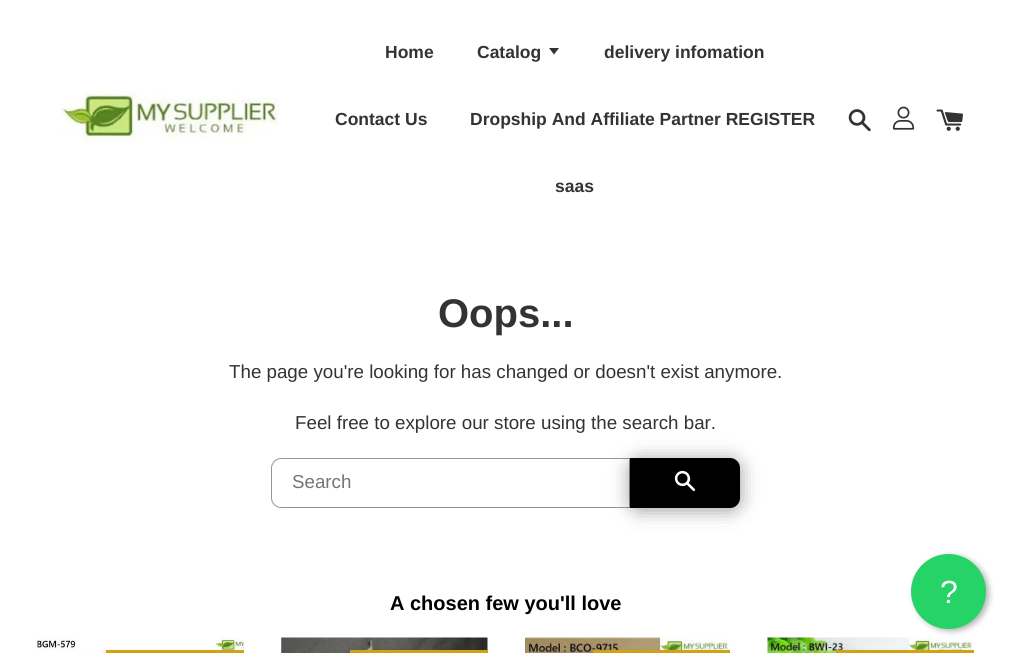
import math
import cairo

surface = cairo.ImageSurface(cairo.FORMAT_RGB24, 1011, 653)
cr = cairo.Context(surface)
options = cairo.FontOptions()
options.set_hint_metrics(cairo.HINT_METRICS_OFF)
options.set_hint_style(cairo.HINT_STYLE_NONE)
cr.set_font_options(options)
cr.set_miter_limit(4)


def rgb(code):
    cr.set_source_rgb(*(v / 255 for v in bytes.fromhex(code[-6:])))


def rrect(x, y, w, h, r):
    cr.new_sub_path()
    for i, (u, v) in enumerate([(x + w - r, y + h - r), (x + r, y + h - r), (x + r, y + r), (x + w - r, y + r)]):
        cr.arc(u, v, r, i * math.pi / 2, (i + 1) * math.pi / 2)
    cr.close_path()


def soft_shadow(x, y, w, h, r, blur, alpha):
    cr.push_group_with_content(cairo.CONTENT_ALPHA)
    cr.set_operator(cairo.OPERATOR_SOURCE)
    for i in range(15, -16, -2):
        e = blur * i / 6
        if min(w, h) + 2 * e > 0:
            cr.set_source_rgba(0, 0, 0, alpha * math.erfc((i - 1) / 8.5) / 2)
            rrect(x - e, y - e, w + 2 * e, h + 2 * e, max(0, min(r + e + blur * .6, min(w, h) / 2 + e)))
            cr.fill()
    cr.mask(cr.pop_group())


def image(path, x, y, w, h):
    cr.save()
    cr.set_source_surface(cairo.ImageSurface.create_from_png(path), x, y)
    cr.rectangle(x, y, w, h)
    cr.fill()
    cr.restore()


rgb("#ffffff")
cr.paint()
image("img/1.png", 61, 92, 218, 52)
rgb("#333333")
cr.new_path()
cr.move_to(549, 48)
cr.line_to(554, 54.5)
cr.line_to(559, 48)
cr.close_path()
cr.fill()
image("img/2.png", 848, 109, 23, 23)
image("img/3.png", 892, 106, 23, 24)
image("img/4.png", 936, 109, 27, 22)
cr.new_path()
cr.move_to(281, 458.5)
cr.line_to(629.5, 458.5)
cr.line_to(629.5, 507.5)
cr.line_to(281, 507.5)
cr.curve_to(276, 507.5, 271.5, 503, 271.5, 498)
cr.line_to(271.5, 468)
cr.curve_to(271.5, 463, 276, 458.5, 281, 458.5)
cr.close_path()
rgb("#959595")
cr.set_line_width(1)
cr.stroke()
rgb("#000000")
soft_shadow(630, 460, 110, 50, 10, 9.5, 0.4)
rgb("#000000")
cr.new_path()
cr.move_to(630, 458)
cr.line_to(730, 458)
cr.curve_to(735.5, 458, 740, 462.5, 740, 468)
cr.line_to(740, 498)
cr.curve_to(740, 503.5, 735.5, 508, 730, 508)
cr.line_to(630, 508)
cr.close_path()
cr.fill()
image("img/5.png", 674, 470, 22, 21)
image("img/6.png", 37, 637, 207, 16)
rgb("#000000")
soft_shadow(104, 653, 137, 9, 0, 3, 0.15)
rgb("#d2a216")
cr.rectangle(106, 650, 138, 3)
cr.fill()
image("img/7.png", 281, 637, 207, 16)
rgb("#000000")
soft_shadow(348, 653, 137, 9, 0, 3, 0.15)
rgb("#d2a216")
cr.rectangle(350, 650, 138, 3)
cr.fill()
image("img/8.png", 525, 637, 204, 16)
rgb("#000000")
soft_shadow(590, 653, 138, 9, 0, 3, 0.15)
rgb("#d2a216")
cr.rectangle(593, 650, 137, 3)
cr.fill()
image("img/9.png", 767, 637, 207, 16)
rgb("#000000")
soft_shadow(834, 653, 137, 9, 0, 3, 0.15)
rgb("#d2a216")
cr.rectangle(836, 650, 138, 3)
cr.fill()
rgb("#000000")
soft_shadow(914, 556, 75, 75, 37.5, 3, 0.3)
rgb("#25d366")
cr.arc(948.5, 591.5, 37.5, 0, 2 * math.pi)
cr.fill()
cr.select_font_face("Liberation Sans", cairo.FONT_SLANT_NORMAL, cairo.FONT_WEIGHT_BOLD)
cr.set_font_size(17.5)
rgb("#333333")
for x, y, s in [
    (385, 58, "Home"),
    (477, 58, "Catalog"),
    (604, 58, "delivery infomation"),
    (335, 125, "Contact Us"),
    (470, 125, "Dropship And Affiliate Partner REGISTER"),
    (555, 192, "saas"),
]:
    cr.move_to(x, y)
    cr.show_text(s)
cr.set_font_size(40)
cr.move_to(438, 327)
cr.show_text("Oops...")
cr.select_font_face("Liberation Sans")
cr.set_font_size(18.75)
cr.move_to(229, 378)
cr.show_text("The page you're looking for has changed or doesn't exist anymore.")
cr.move_to(295, 429)
cr.show_text("Feel free to explore our store using the search bar.")
rgb("#757575")
cr.move_to(292, 488)
cr.show_text("Search")
cr.select_font_face("Liberation Sans", cairo.FONT_SLANT_NORMAL, cairo.FONT_WEIGHT_BOLD)
cr.set_font_size(20)
rgb("#000000")
cr.move_to(390, 610)
cr.show_text("A chosen few you'll love")
cr.select_font_face("Liberation Sans")
cr.set_font_size(32)
rgb("#ffffff")
cr.move_to(940, 603)
cr.show_text("?")
surface.write_to_png("page.png")
